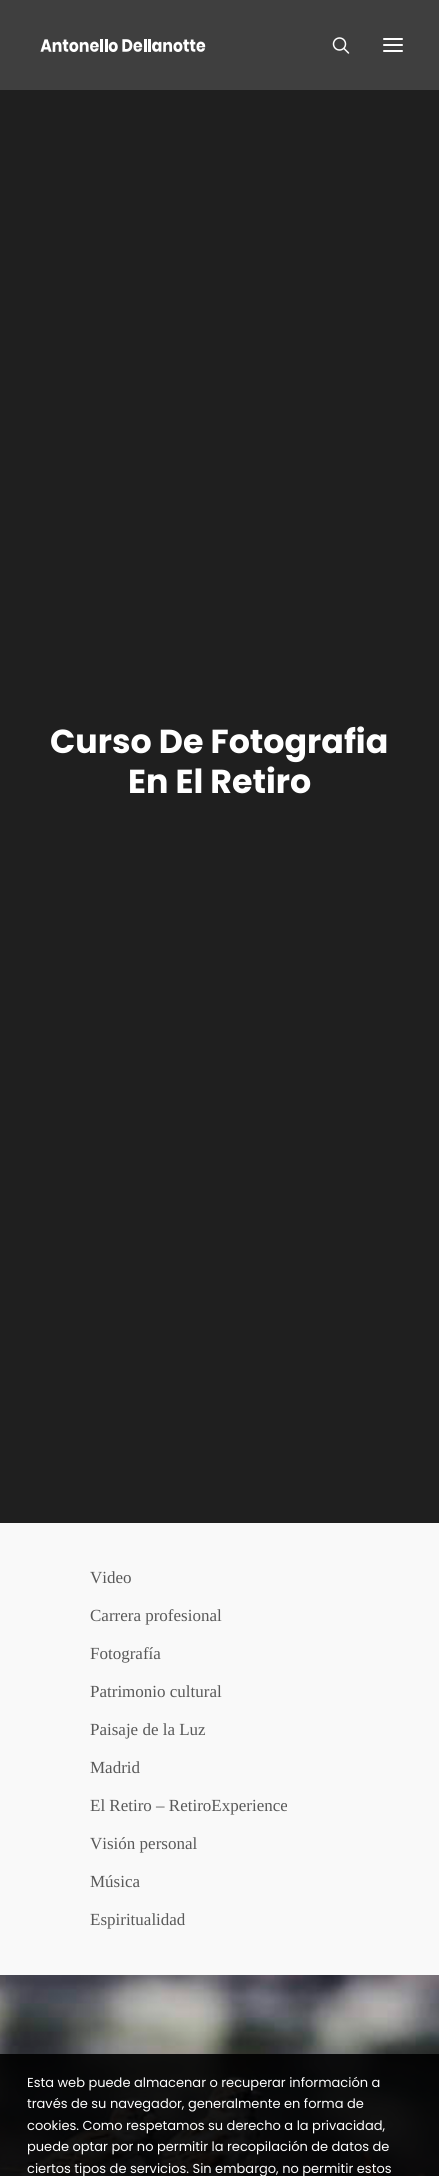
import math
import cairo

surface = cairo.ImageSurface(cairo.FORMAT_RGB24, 439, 2176)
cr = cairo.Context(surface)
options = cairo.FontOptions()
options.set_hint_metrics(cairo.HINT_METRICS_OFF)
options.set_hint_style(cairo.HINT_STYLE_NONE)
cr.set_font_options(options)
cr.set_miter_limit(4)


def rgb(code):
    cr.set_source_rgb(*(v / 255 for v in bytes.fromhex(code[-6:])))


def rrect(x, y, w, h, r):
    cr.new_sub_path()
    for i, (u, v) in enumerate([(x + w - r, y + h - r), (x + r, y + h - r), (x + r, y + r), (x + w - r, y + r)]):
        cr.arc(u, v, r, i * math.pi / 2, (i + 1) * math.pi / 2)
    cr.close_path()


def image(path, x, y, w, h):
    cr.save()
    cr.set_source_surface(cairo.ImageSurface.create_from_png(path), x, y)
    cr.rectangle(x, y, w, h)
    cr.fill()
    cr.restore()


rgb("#1f1f1f")
cr.paint()
rgb("#3f3f3f")
cr.rectangle(0, 0, 439, 90)
cr.fill()
image("img/1.png", 40, 39, 166, 13)
image("img/2.png", 332, 37, 18, 17)
rgb("#ffffff")
rrect(383, 44, 20, 2, 1)
cr.fill()
rrect(383, 38, 20, 2, 1)
cr.fill()
rrect(383, 50, 20, 2, 1)
cr.fill()
rgb("#f9f9f9")
cr.rectangle(0, 1523, 439, 452)
cr.fill()
image("img/3.png", 0, 1975, 439, 201)
cr.set_source_rgba(0, 0, 0, 0.9)
cr.rectangle(0, 2054, 439, 122)
cr.fill()
cr.select_font_face("Poppins", cairo.FONT_SLANT_NORMAL, cairo.FONT_WEIGHT_BOLD)
cr.set_font_size(33.25)
rgb("#ffffff")
cr.move_to(50, 753)
cr.show_text("Curso De Fotografia")
cr.move_to(128, 793)
cr.show_text("En El Retiro")
cr.select_font_face("Liberation Serif")
cr.set_font_size(17)
rgb("#595959")
for x, y, s in [
    (90, 1583, "Video"),
    (90, 1621, "Carrera profesional"),
    (90, 1659, "Fotografía"),
    (90, 1697, "Patrimonio cultural"),
    (90, 1735, "Paisaje de la Luz"),
    (90, 1773, "Madrid"),
    (90, 1811, "El Retiro – RetiroExperience"),
    (90, 1849, "Visión personal"),
    (90, 1887, "Música"),
    (90, 1925, "Espiritualidad"),
]:
    cr.move_to(x, y)
    cr.show_text(s)
cr.select_font_face("Poppins")
cr.set_font_size(13)
rgb("#ffffff")
for x, y, s in [
    (27, 2087, "Esta web puede almacenar o recuperar información a"),
    (27, 2108, "través de su navegador, generalmente en forma de"),
    (27, 2130, "cookies. Como respetamos su derecho a la privacidad,"),
    (27, 2151, "puede optar por no permitir la recopilación de datos de"),
    (27, 2173, "ciertos tipos de servicios. Sin embargo, no permitir estos"),
]:
    cr.move_to(x, y)
    cr.show_text(s)
surface.write_to_png("page.png")
